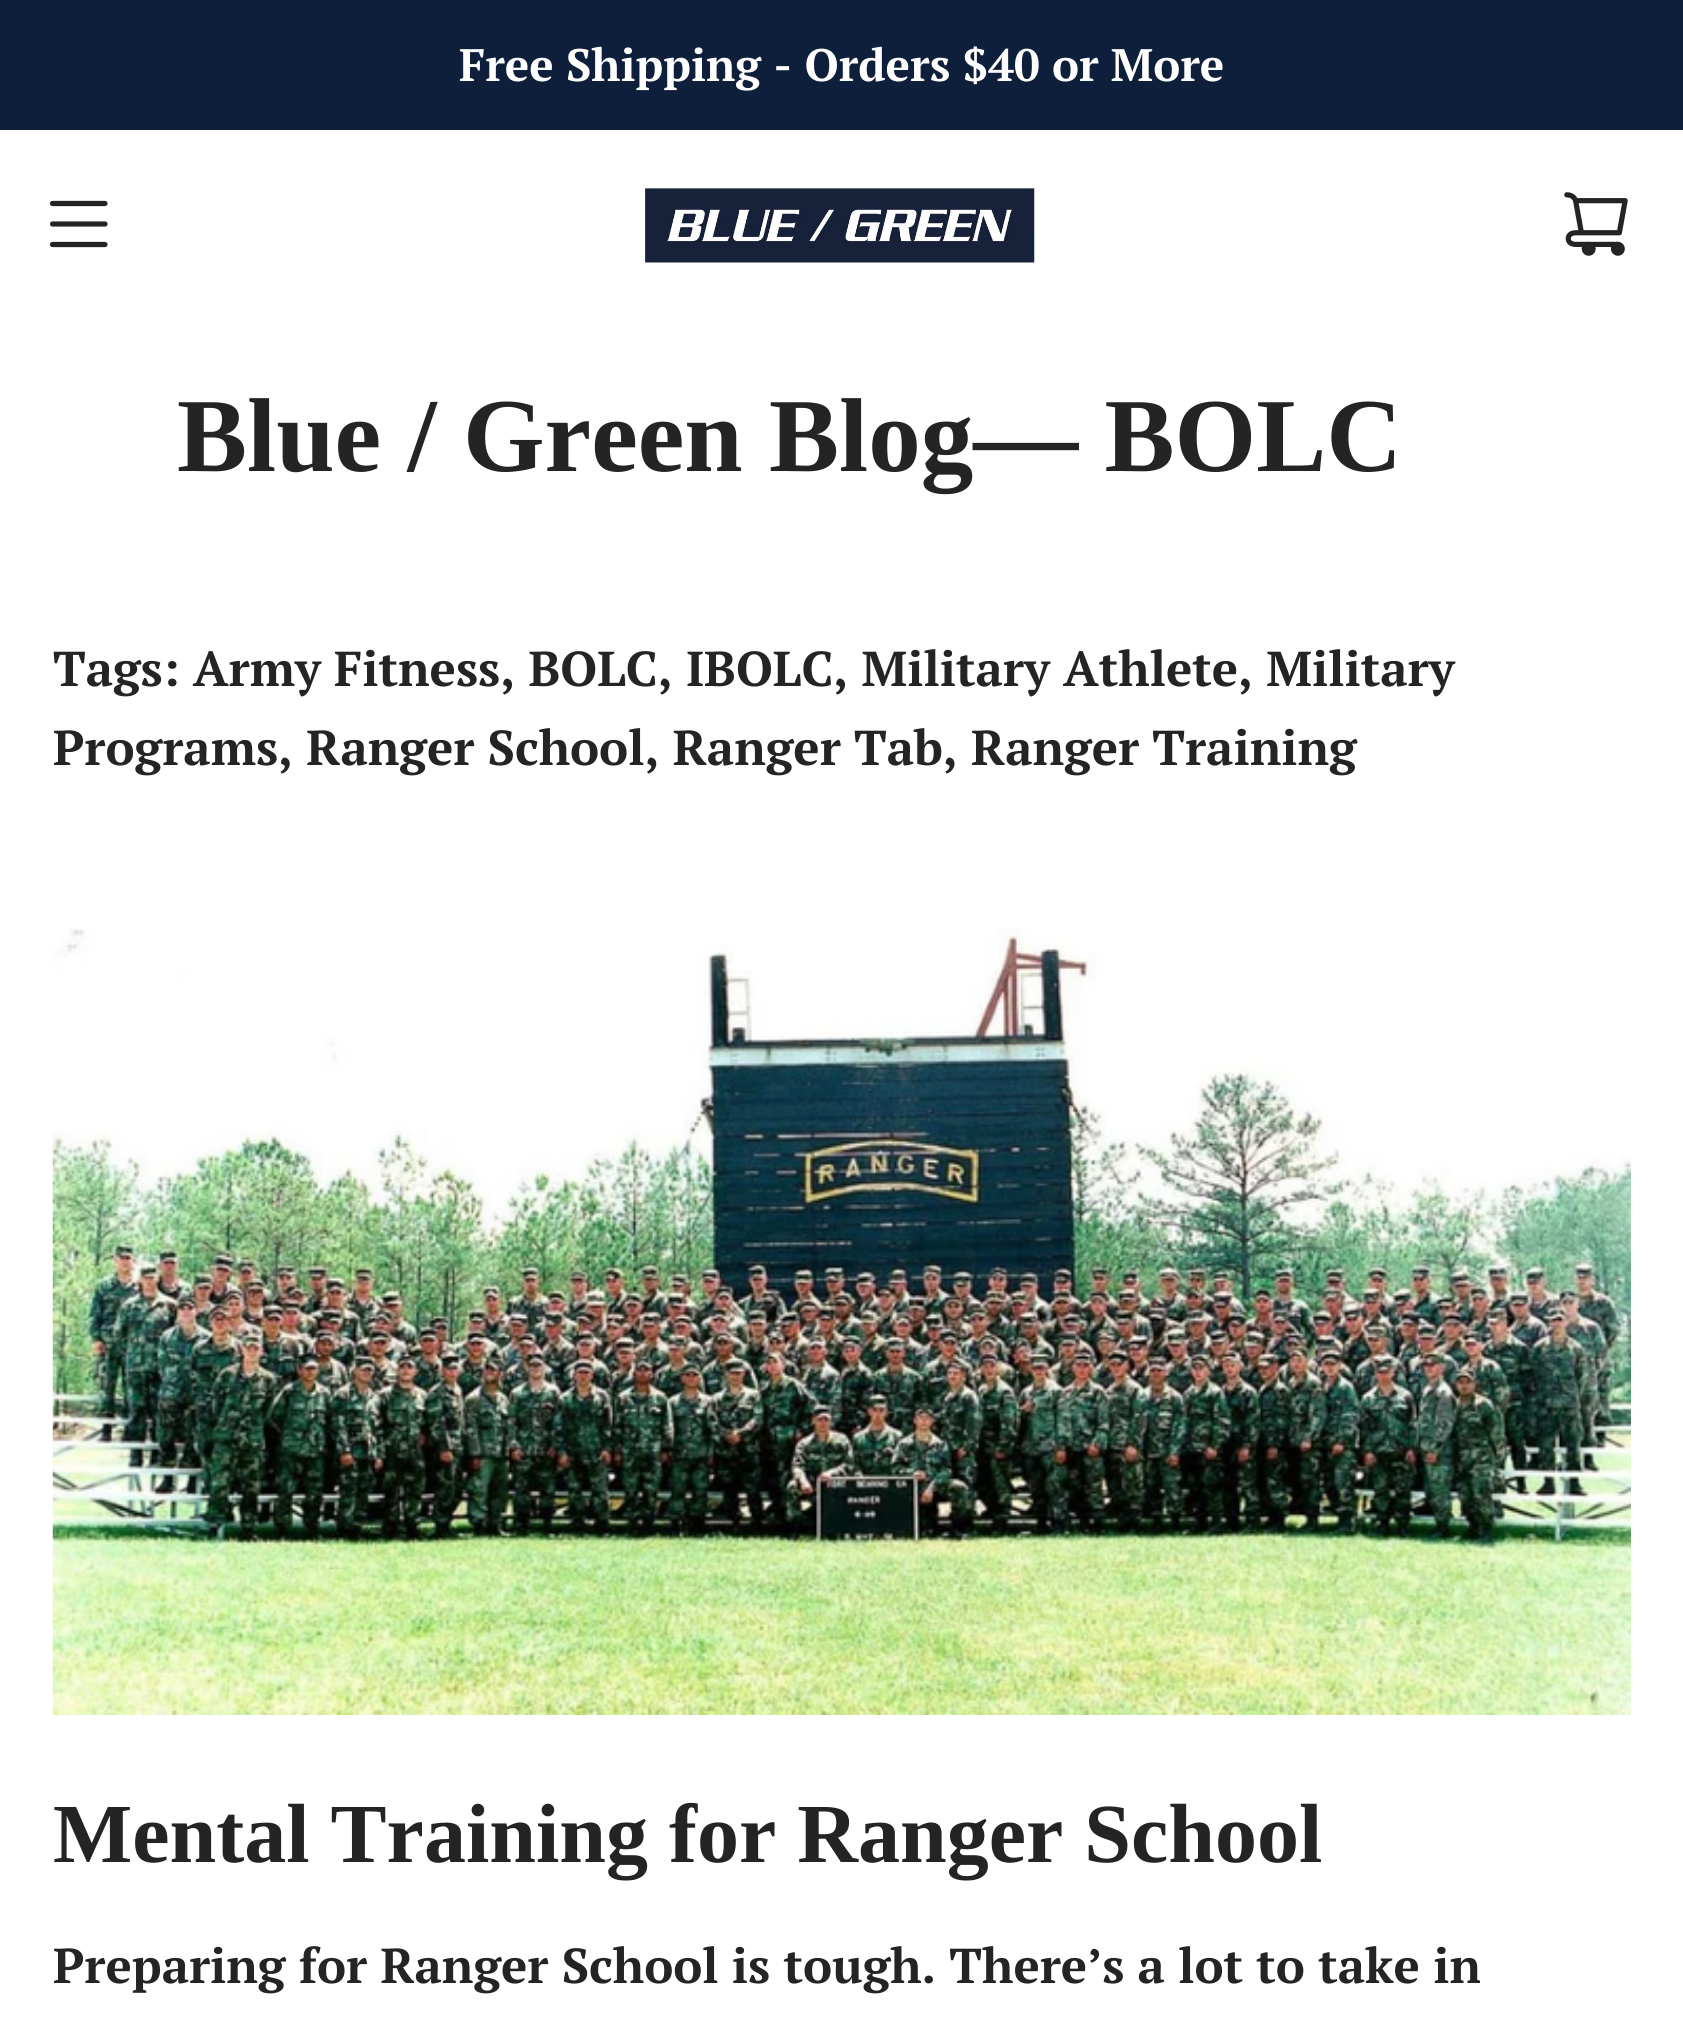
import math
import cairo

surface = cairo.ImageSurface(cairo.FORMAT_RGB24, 1683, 2019)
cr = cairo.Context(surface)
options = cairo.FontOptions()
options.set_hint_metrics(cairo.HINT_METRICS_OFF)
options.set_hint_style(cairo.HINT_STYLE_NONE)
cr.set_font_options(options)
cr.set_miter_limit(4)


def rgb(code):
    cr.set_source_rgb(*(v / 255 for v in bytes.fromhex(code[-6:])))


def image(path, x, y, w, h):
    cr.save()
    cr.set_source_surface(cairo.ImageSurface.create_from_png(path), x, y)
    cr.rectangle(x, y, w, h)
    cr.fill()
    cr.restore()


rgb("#ffffff")
cr.paint()
rgb("#0d1f3b")
cr.rectangle(0, 0, 1683, 130)
cr.fill()
cr.new_path()
cr.move_to(52.5, 203.5)
cr.line_to(105, 203.5)
cr.move_to(52.5, 224)
cr.line_to(105, 224)
cr.move_to(52.5, 244.5)
cr.line_to(105, 244.5)
rgb("#242424")
cr.set_line_width(5.2)
cr.set_line_cap(cairo.LINE_CAP_ROUND)
cr.set_line_join(cairo.LINE_JOIN_ROUND)
cr.stroke()
image("img/1.png", 645, 188, 390, 75)
image("img/2.png", 1564, 192, 64, 64)
image("img/3.png", 52, 928, 1579, 787)
cr.select_font_face("PT Serif", cairo.FONT_SLANT_NORMAL, cairo.FONT_WEIGHT_BOLD)
cr.set_font_size(45.5)
rgb("#ffffff")
cr.move_to(459, 81)
cr.show_text("Free Shipping - Orders $40 or More")
cr.select_font_face("Liberation Serif", cairo.FONT_SLANT_NORMAL, cairo.FONT_WEIGHT_BOLD)
cr.set_font_size(105)
rgb("#242424")
cr.move_to(177, 471)
cr.show_text("Blue / Green Blog— BOLC")
cr.select_font_face("PT Serif", cairo.FONT_SLANT_NORMAL, cairo.FONT_WEIGHT_BOLD)
cr.set_font_size(49)
cr.move_to(53, 686)
cr.show_text("Tags: Army Fitness, BOLC, IBOLC, Military Athlete, Military")
cr.move_to(53, 765)
cr.show_text("Programs, Ranger School, Ranger Tab, Ranger Training")
cr.select_font_face("Liberation Serif", cairo.FONT_SLANT_NORMAL, cairo.FONT_WEIGHT_BOLD)
cr.set_font_size(84)
cr.move_to(53, 1862)
cr.show_text("Mental Training for Ranger School")
cr.select_font_face("PT Serif", cairo.FONT_SLANT_NORMAL, cairo.FONT_WEIGHT_BOLD)
cr.set_font_size(49)
cr.move_to(53, 1983)
cr.show_text("Preparing for Ranger School is tough. There’s a lot to take in")
surface.write_to_png("page.png")
